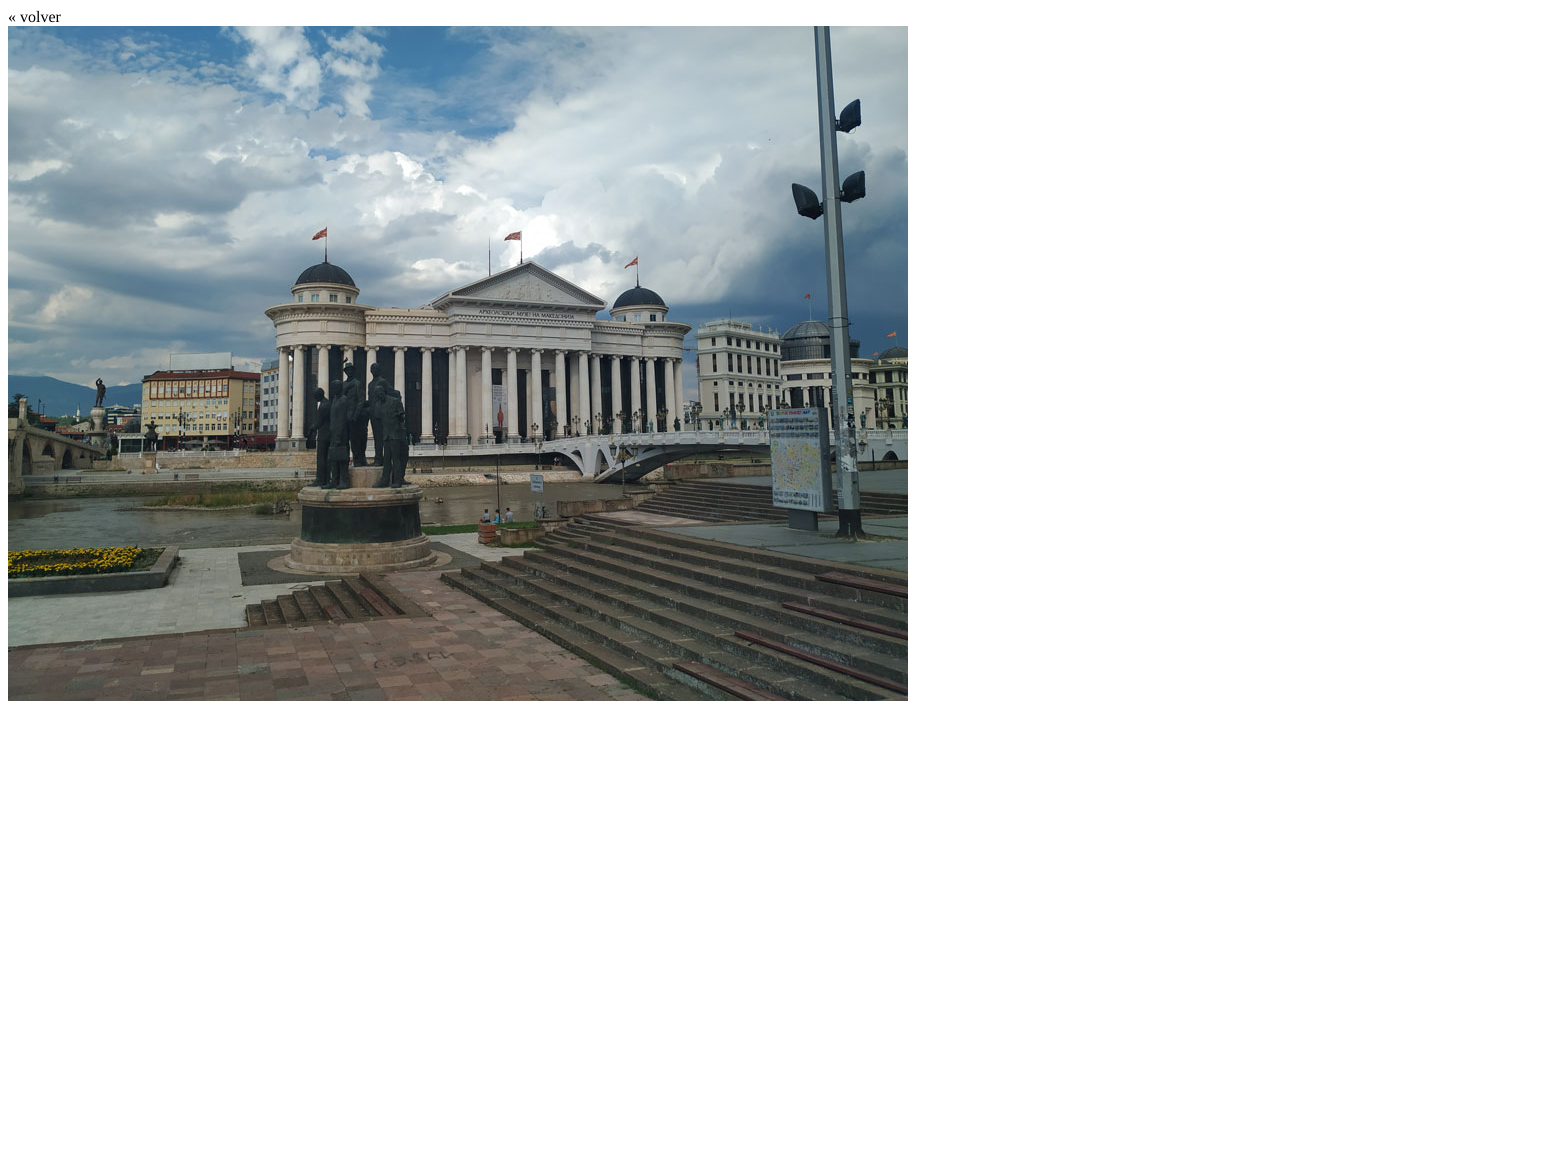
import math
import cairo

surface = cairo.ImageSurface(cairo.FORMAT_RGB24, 1565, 1172)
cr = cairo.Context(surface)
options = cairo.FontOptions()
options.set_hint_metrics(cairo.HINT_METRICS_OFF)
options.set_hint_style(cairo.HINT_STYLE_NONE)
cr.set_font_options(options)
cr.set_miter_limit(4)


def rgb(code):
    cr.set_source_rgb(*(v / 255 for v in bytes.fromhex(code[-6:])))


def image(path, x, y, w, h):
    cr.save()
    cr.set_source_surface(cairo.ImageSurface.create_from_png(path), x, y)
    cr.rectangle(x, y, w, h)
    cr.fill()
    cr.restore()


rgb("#ffffff")
cr.paint()
image("img/1.png", 8, 26, 900, 675)
cr.select_font_face("Liberation Serif")
cr.set_font_size(16)
rgb("#000000")
cr.move_to(8, 22)
cr.show_text("« volver")
surface.write_to_png("page.png")
